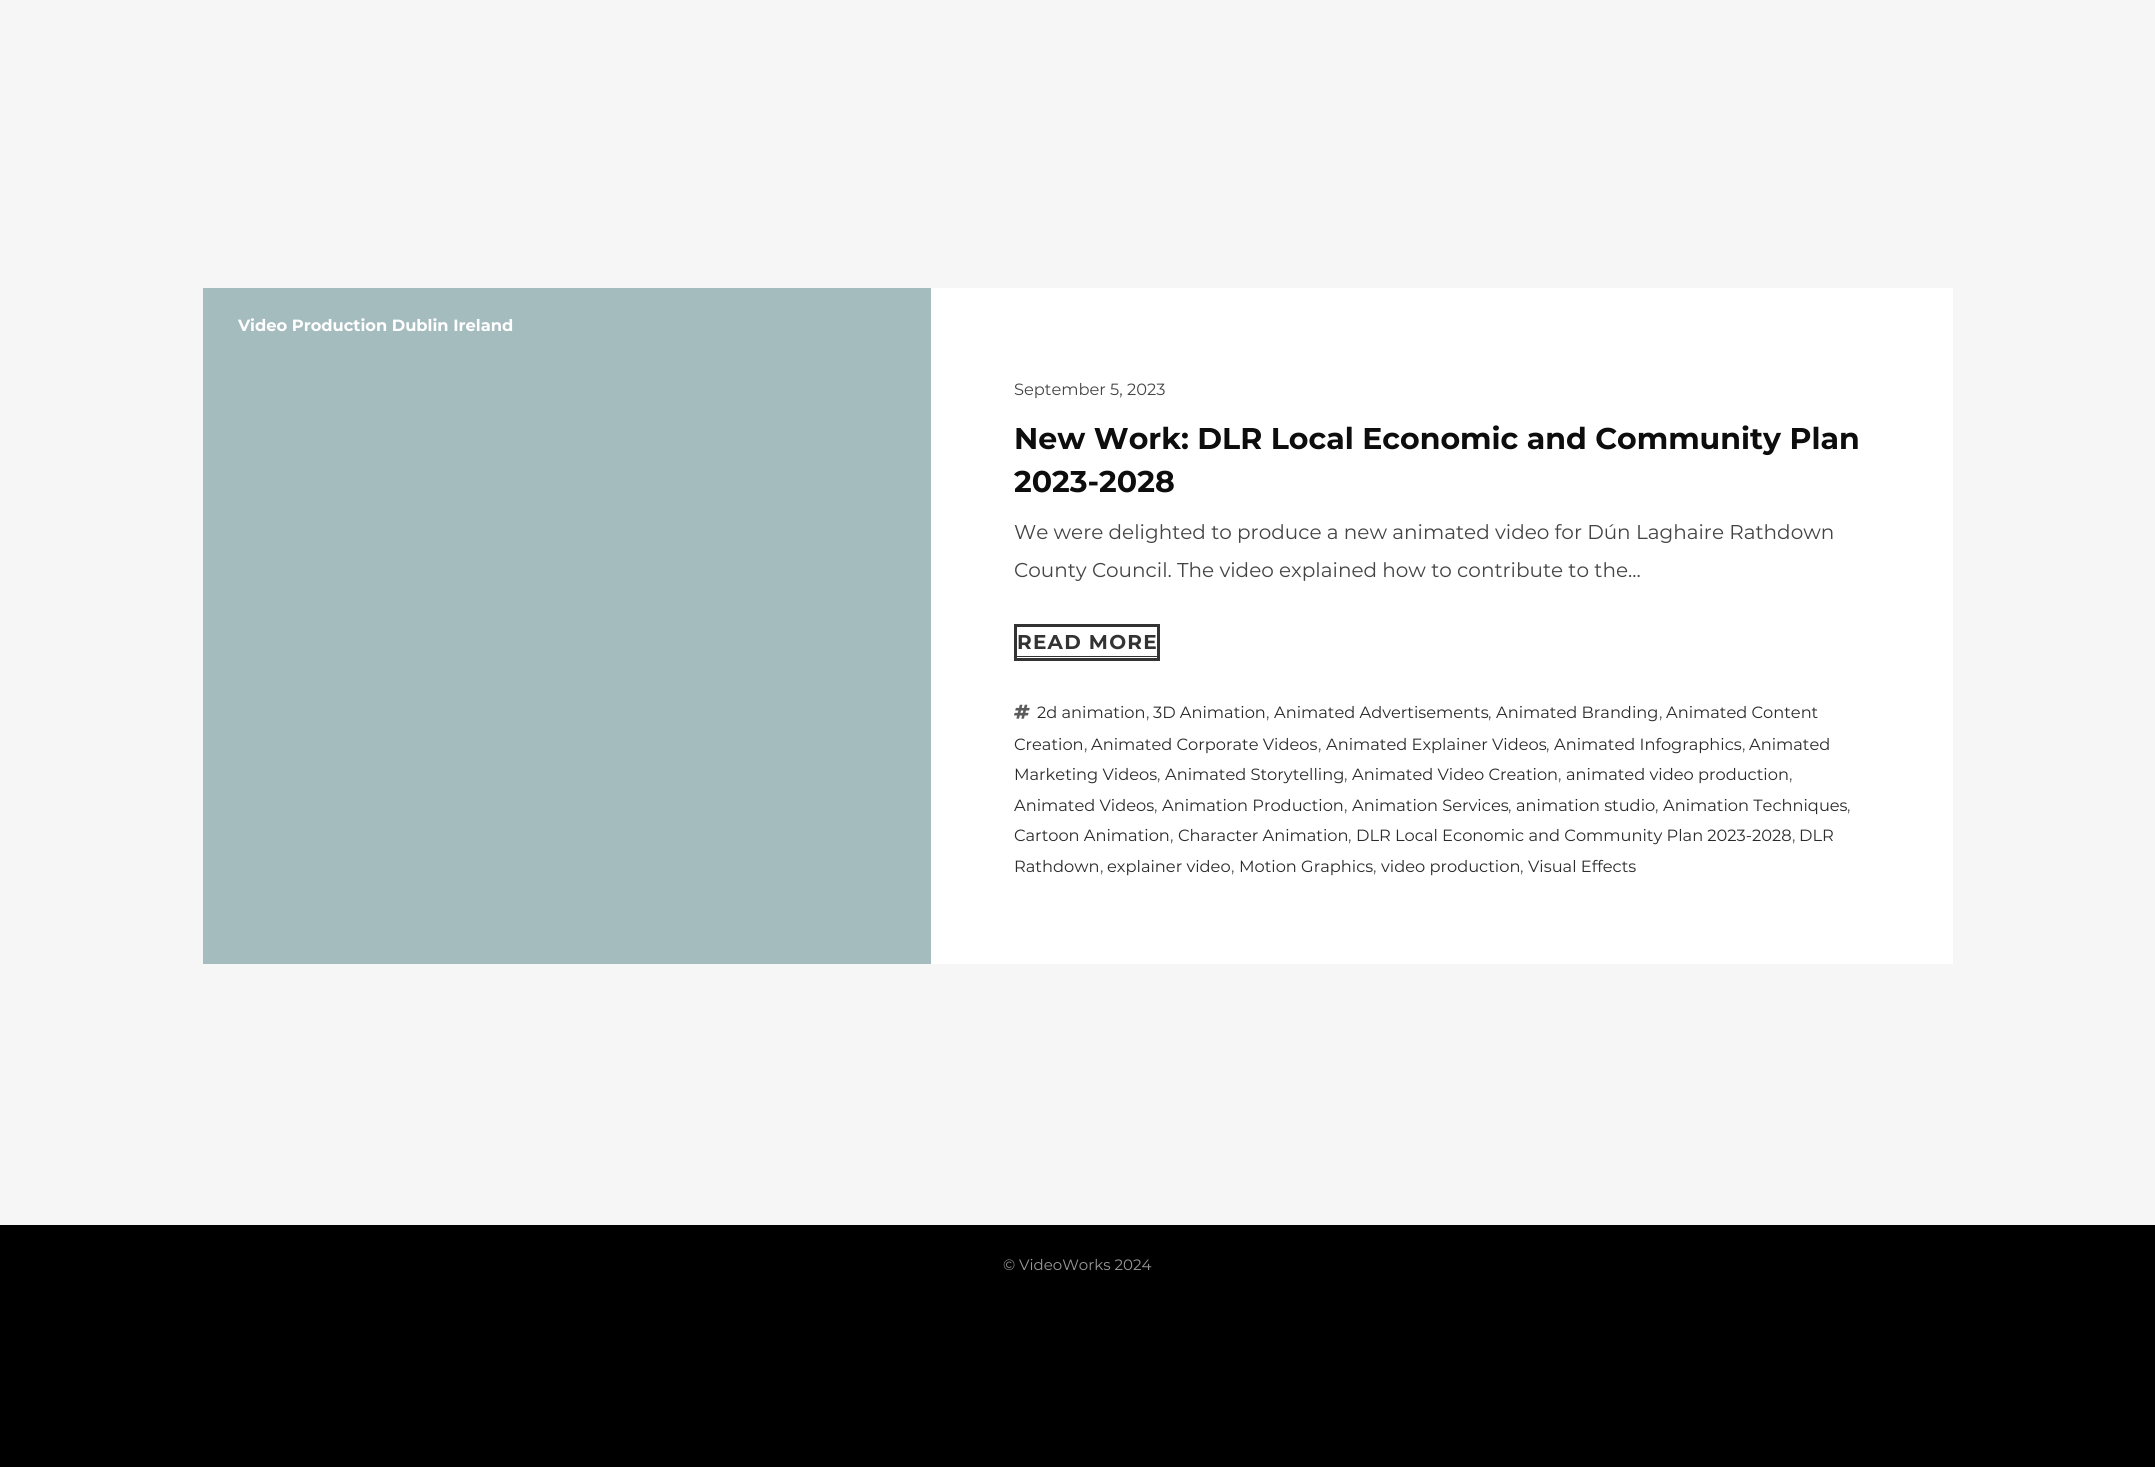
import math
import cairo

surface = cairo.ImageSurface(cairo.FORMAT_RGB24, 2155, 1467)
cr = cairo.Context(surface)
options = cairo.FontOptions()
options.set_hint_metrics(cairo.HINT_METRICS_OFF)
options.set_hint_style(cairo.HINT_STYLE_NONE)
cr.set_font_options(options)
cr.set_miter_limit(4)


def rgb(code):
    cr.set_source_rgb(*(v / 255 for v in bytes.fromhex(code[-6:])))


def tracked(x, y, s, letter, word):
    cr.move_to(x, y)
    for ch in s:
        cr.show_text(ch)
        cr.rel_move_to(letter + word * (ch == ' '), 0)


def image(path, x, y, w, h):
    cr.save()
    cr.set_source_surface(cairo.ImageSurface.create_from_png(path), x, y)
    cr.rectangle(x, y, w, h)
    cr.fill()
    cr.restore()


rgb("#000000")
cr.paint()
for x, y, w, h, color in [
    (0, 0, 2155, 1225, "#f6f6f6"),
    (203, 288, 728, 676, "#a5bcbf"),
    (931, 288, 1022, 676, "#ffffff"),
]:
    rgb(color)
    cr.rectangle(x, y, w, h)
    cr.fill()
cr.rectangle(1015.5, 625.5, 143, 34)
rgb("#333333")
cr.set_line_width(3)
cr.stroke()
cr.rectangle(1016, 656, 142, 1)
cr.fill()
image("img/1.png", 1014, 704, 16, 15)
cr.select_font_face("Montserrat", cairo.FONT_SLANT_NORMAL, cairo.FONT_WEIGHT_BOLD)
cr.set_font_size(16.25)
rgb("#ffffff")
cr.move_to(238, 331)
cr.show_text("Video Production Dublin Ireland")
cr.select_font_face("Montserrat")
rgb("#444444")
cr.move_to(1014, 395)
cr.show_text("September 5, 2023")
cr.select_font_face("Montserrat", cairo.FONT_SLANT_NORMAL, cairo.FONT_WEIGHT_BOLD)
cr.set_font_size(30)
rgb("#0d0d0d")
cr.move_to(1014, 449)
cr.show_text("New Work: DLR Local Economic and Community Plan")
cr.move_to(1014, 492)
cr.show_text("2023-2028")
cr.select_font_face("Montserrat")
cr.set_font_size(20)
rgb("#444444")
cr.move_to(1014, 539)
cr.show_text("We were delighted to produce a new animated video for Dún Laghaire Rathdown")
cr.move_to(1014, 577)
cr.show_text("County Council. The video explained how to contribute to the...")
cr.select_font_face("Montserrat", cairo.FONT_SLANT_NORMAL, cairo.FONT_WEIGHT_BOLD)
rgb("#333333")
tracked(1017, 649, "READ MORE", 1.25, 0)
cr.select_font_face("Montserrat")
cr.set_font_size(16.25)
rgb("#2a2a2a")
cr.move_to(1037, 718)
cr.show_text("2d animation")
rgb("#5a5a5a")
cr.move_to(1146, 718)
cr.show_text(",")
rgb("#2a2a2a")
cr.move_to(1153, 718)
cr.show_text("3D Animation")
rgb("#5a5a5a")
cr.move_to(1266, 718)
cr.show_text(",")
rgb("#2a2a2a")
cr.move_to(1274, 718)
cr.show_text("Animated Advertisements")
rgb("#5a5a5a")
cr.move_to(1488, 718)
cr.show_text(",")
rgb("#2a2a2a")
cr.move_to(1496, 718)
cr.show_text("Animated Branding")
rgb("#5a5a5a")
cr.move_to(1659, 718)
cr.show_text(",")
rgb("#2a2a2a")
cr.move_to(1666, 718)
cr.show_text("Animated Content")
cr.move_to(1014, 750)
cr.show_text("Creation")
rgb("#5a5a5a")
cr.move_to(1084, 750)
cr.show_text(",")
rgb("#2a2a2a")
cr.move_to(1091, 750)
cr.show_text("Animated Corporate Videos")
rgb("#5a5a5a")
cr.move_to(1318, 750)
cr.show_text(",")
rgb("#2a2a2a")
cr.move_to(1326, 750)
cr.show_text("Animated Explainer Videos")
rgb("#5a5a5a")
cr.move_to(1546, 750)
cr.show_text(",")
rgb("#2a2a2a")
cr.move_to(1554, 750)
cr.show_text("Animated Infographics")
rgb("#5a5a5a")
cr.move_to(1742, 750)
cr.show_text(",")
rgb("#2a2a2a")
cr.move_to(1749, 750)
cr.show_text("Animated")
cr.move_to(1014, 780)
cr.show_text("Marketing Videos")
rgb("#5a5a5a")
cr.move_to(1157, 780)
cr.show_text(",")
rgb("#2a2a2a")
cr.move_to(1165, 780)
cr.show_text("Animated Storytelling")
rgb("#5a5a5a")
cr.move_to(1344, 780)
cr.show_text(",")
rgb("#2a2a2a")
cr.move_to(1352, 780)
cr.show_text("Animated Video Creation")
rgb("#5a5a5a")
cr.move_to(1558, 780)
cr.show_text(",")
rgb("#2a2a2a")
cr.move_to(1566, 780)
cr.show_text("animated video production")
rgb("#5a5a5a")
cr.move_to(1789, 780)
cr.show_text(",")
rgb("#2a2a2a")
cr.move_to(1014, 811)
cr.show_text("Animated Videos")
rgb("#5a5a5a")
cr.move_to(1154, 811)
cr.show_text(",")
rgb("#2a2a2a")
cr.move_to(1162, 811)
cr.show_text("Animation Production")
rgb("#5a5a5a")
cr.move_to(1344, 811)
cr.show_text(",")
rgb("#2a2a2a")
cr.move_to(1352, 811)
cr.show_text("Animation Services")
rgb("#5a5a5a")
cr.move_to(1508, 811)
cr.show_text(",")
rgb("#2a2a2a")
cr.move_to(1516, 811)
cr.show_text("animation studio")
rgb("#5a5a5a")
cr.move_to(1655, 811)
cr.show_text(",")
rgb("#2a2a2a")
cr.move_to(1663, 811)
cr.show_text("Animation Techniques")
rgb("#5a5a5a")
cr.move_to(1847, 811)
cr.show_text(",")
rgb("#2a2a2a")
for x, y, s in [
    (1014, 841, "Cartoon Animation"),
    (1178, 841, "Character Animation"),
    (1356, 841, "DLR Local Economic and Community Plan 2023-2028"),
    (1799, 841, "DLR"),
]:
    cr.move_to(x, y)
    cr.show_text(s)
rgb("#5a5a5a")
for x, y, s in [
    (1170, 841, ","),
    (1348, 841, ","),
    (1792, 841, ","),
]:
    cr.move_to(x, y)
    cr.show_text(s)
rgb("#2a2a2a")
cr.move_to(1014, 872)
cr.show_text("Rathdown")
rgb("#5a5a5a")
cr.move_to(1100, 872)
cr.show_text(",")
rgb("#2a2a2a")
cr.move_to(1107, 872)
cr.show_text("explainer video")
rgb("#5a5a5a")
cr.move_to(1231, 872)
cr.show_text(",")
rgb("#2a2a2a")
cr.move_to(1239, 872)
cr.show_text("Motion Graphics")
rgb("#5a5a5a")
cr.move_to(1373, 872)
cr.show_text(",")
rgb("#2a2a2a")
cr.move_to(1381, 872)
cr.show_text("video production")
rgb("#5a5a5a")
cr.move_to(1520, 872)
cr.show_text(",")
rgb("#2a2a2a")
cr.move_to(1528, 872)
cr.show_text("Visual Effects")
cr.set_font_size(15)
rgb("#999999")
cr.move_to(1003, 1270)
cr.show_text("© VideoWorks 2024")
surface.write_to_png("page.png")
